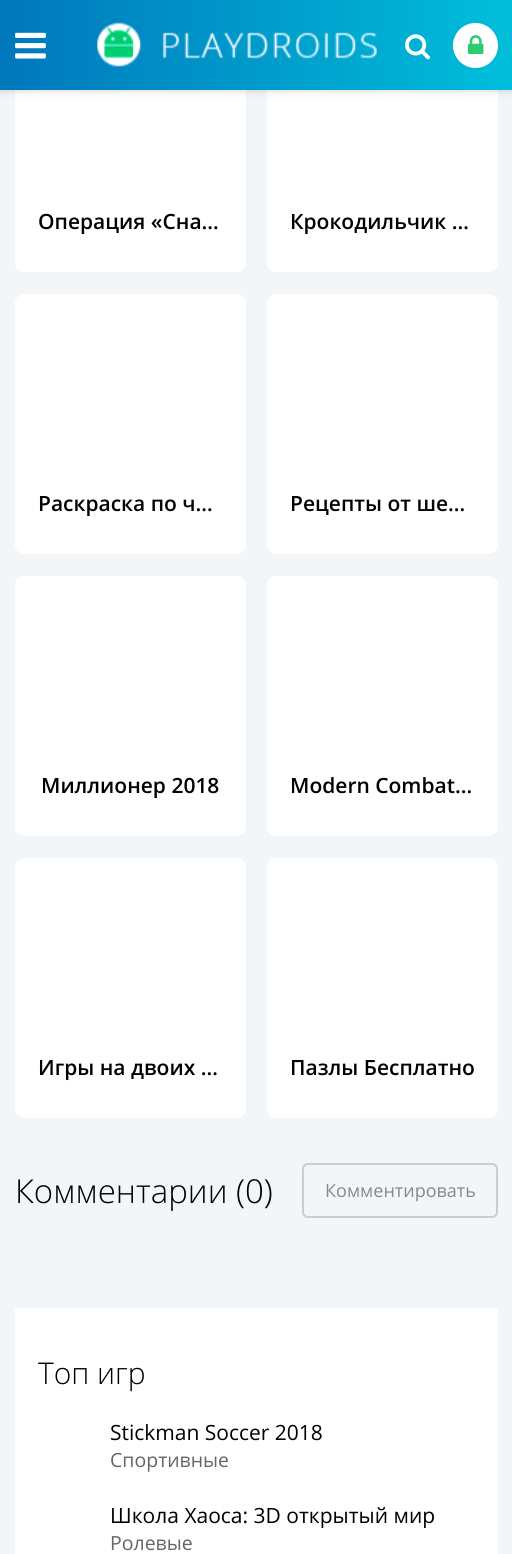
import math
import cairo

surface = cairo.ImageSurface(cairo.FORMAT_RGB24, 512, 1554)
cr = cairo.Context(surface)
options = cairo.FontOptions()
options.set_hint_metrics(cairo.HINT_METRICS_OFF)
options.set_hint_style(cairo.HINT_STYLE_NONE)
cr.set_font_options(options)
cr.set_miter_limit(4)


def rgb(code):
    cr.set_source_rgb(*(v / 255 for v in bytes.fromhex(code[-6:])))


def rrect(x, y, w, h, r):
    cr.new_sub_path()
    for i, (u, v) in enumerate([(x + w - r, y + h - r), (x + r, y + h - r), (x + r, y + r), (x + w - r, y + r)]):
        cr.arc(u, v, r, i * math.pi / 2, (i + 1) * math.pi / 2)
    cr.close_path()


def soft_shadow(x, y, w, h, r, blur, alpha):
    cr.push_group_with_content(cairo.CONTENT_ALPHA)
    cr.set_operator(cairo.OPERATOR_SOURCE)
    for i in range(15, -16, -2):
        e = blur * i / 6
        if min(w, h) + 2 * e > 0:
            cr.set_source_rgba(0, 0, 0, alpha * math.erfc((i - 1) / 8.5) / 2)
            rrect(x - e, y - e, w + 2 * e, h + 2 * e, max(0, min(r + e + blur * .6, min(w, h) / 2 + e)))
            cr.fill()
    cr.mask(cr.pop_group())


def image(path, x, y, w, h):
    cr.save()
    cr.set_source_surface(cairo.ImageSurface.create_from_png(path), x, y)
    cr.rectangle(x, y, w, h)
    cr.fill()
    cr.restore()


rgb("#f2f6f8")
cr.paint()
rgb("#ffffff")
rrect(15, 12, 231, 260, 9)
cr.fill()
rrect(267, 12, 231, 260, 9)
cr.fill()
rgb("#000000")
soft_shadow(0, 0, 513, 90, 0, 4, 0.2)
gradient = cairo.LinearGradient(0, 45, 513, 45)
gradient.add_color_stop_rgba(0.01, 0, 0.471, 0.737, 1)
gradient.add_color_stop_rgba(1, 0, 0.745, 0.855, 1)
cr.set_source(gradient)
cr.rectangle(0, 0, 512, 90)
cr.fill()
image("img/1.png", 15, 32, 31, 27)
image("img/2.png", 97, 22, 280, 45)
image("img/3.png", 405, 34, 26, 26)
rgb("#ffffff")
cr.arc(475.5, 45.5, 22.5, 0, 2 * math.pi)
cr.fill()
image("img/4.png", 468, 35, 16, 19)
rrect(15, 294, 231, 260, 9)
cr.fill()
rrect(267, 294, 231, 260, 9)
cr.fill()
rrect(15, 576, 231, 260, 9)
cr.fill()
rrect(267, 576, 231, 260, 9)
cr.fill()
rrect(15, 858, 231, 260, 9)
cr.fill()
rrect(267, 858, 231, 260, 9)
cr.fill()
rrect(303, 1164, 194, 53, 5)
rgb("#cccccc")
cr.stroke()
rgb("#ffffff")
cr.rectangle(15, 1308, 483, 246)
cr.fill()
cr.select_font_face("Open Sans SemiBold")
cr.set_font_size(21)
rgb("#000000")
for x, y, s in [
    (38, 229, "Операция «Сна…"),
    (290, 229, "Крокодильчик …"),
    (38, 511, "Раскраска по ч…"),
    (290, 511, "Рецепты от ше…"),
    (41, 793, "Миллионер 2018"),
    (290, 793, "Modern Combat…"),
    (38, 1075, "Игры на двоих …"),
    (290, 1075, "Пазлы Бесплатно"),
]:
    cr.move_to(x, y)
    cr.show_text(s)
cr.select_font_face("Open Sans Light")
cr.set_font_size(33)
cr.move_to(15, 1203)
cr.show_text("Комментарии (0)")
cr.select_font_face("Open Sans")
cr.set_font_size(18)
rgb("#888888")
cr.move_to(325, 1197)
cr.show_text("Комментировать")
cr.select_font_face("Open Sans Light")
cr.set_font_size(30)
rgb("#000000")
cr.move_to(38, 1384)
cr.show_text("Топ игр")
cr.select_font_face("Open Sans")
cr.set_font_size(21)
cr.move_to(110, 1440)
cr.show_text("Stickman Soccer 2018")
cr.set_font_size(19.5)
rgb("#666666")
cr.move_to(110, 1467)
cr.show_text("Спортивные")
cr.set_font_size(21)
rgb("#000000")
cr.move_to(110, 1523)
cr.show_text("Школа Хаоса: 3D открытый мир")
cr.set_font_size(19.5)
rgb("#666666")
cr.move_to(110, 1550)
cr.show_text("Ролевые")
surface.write_to_png("page.png")
